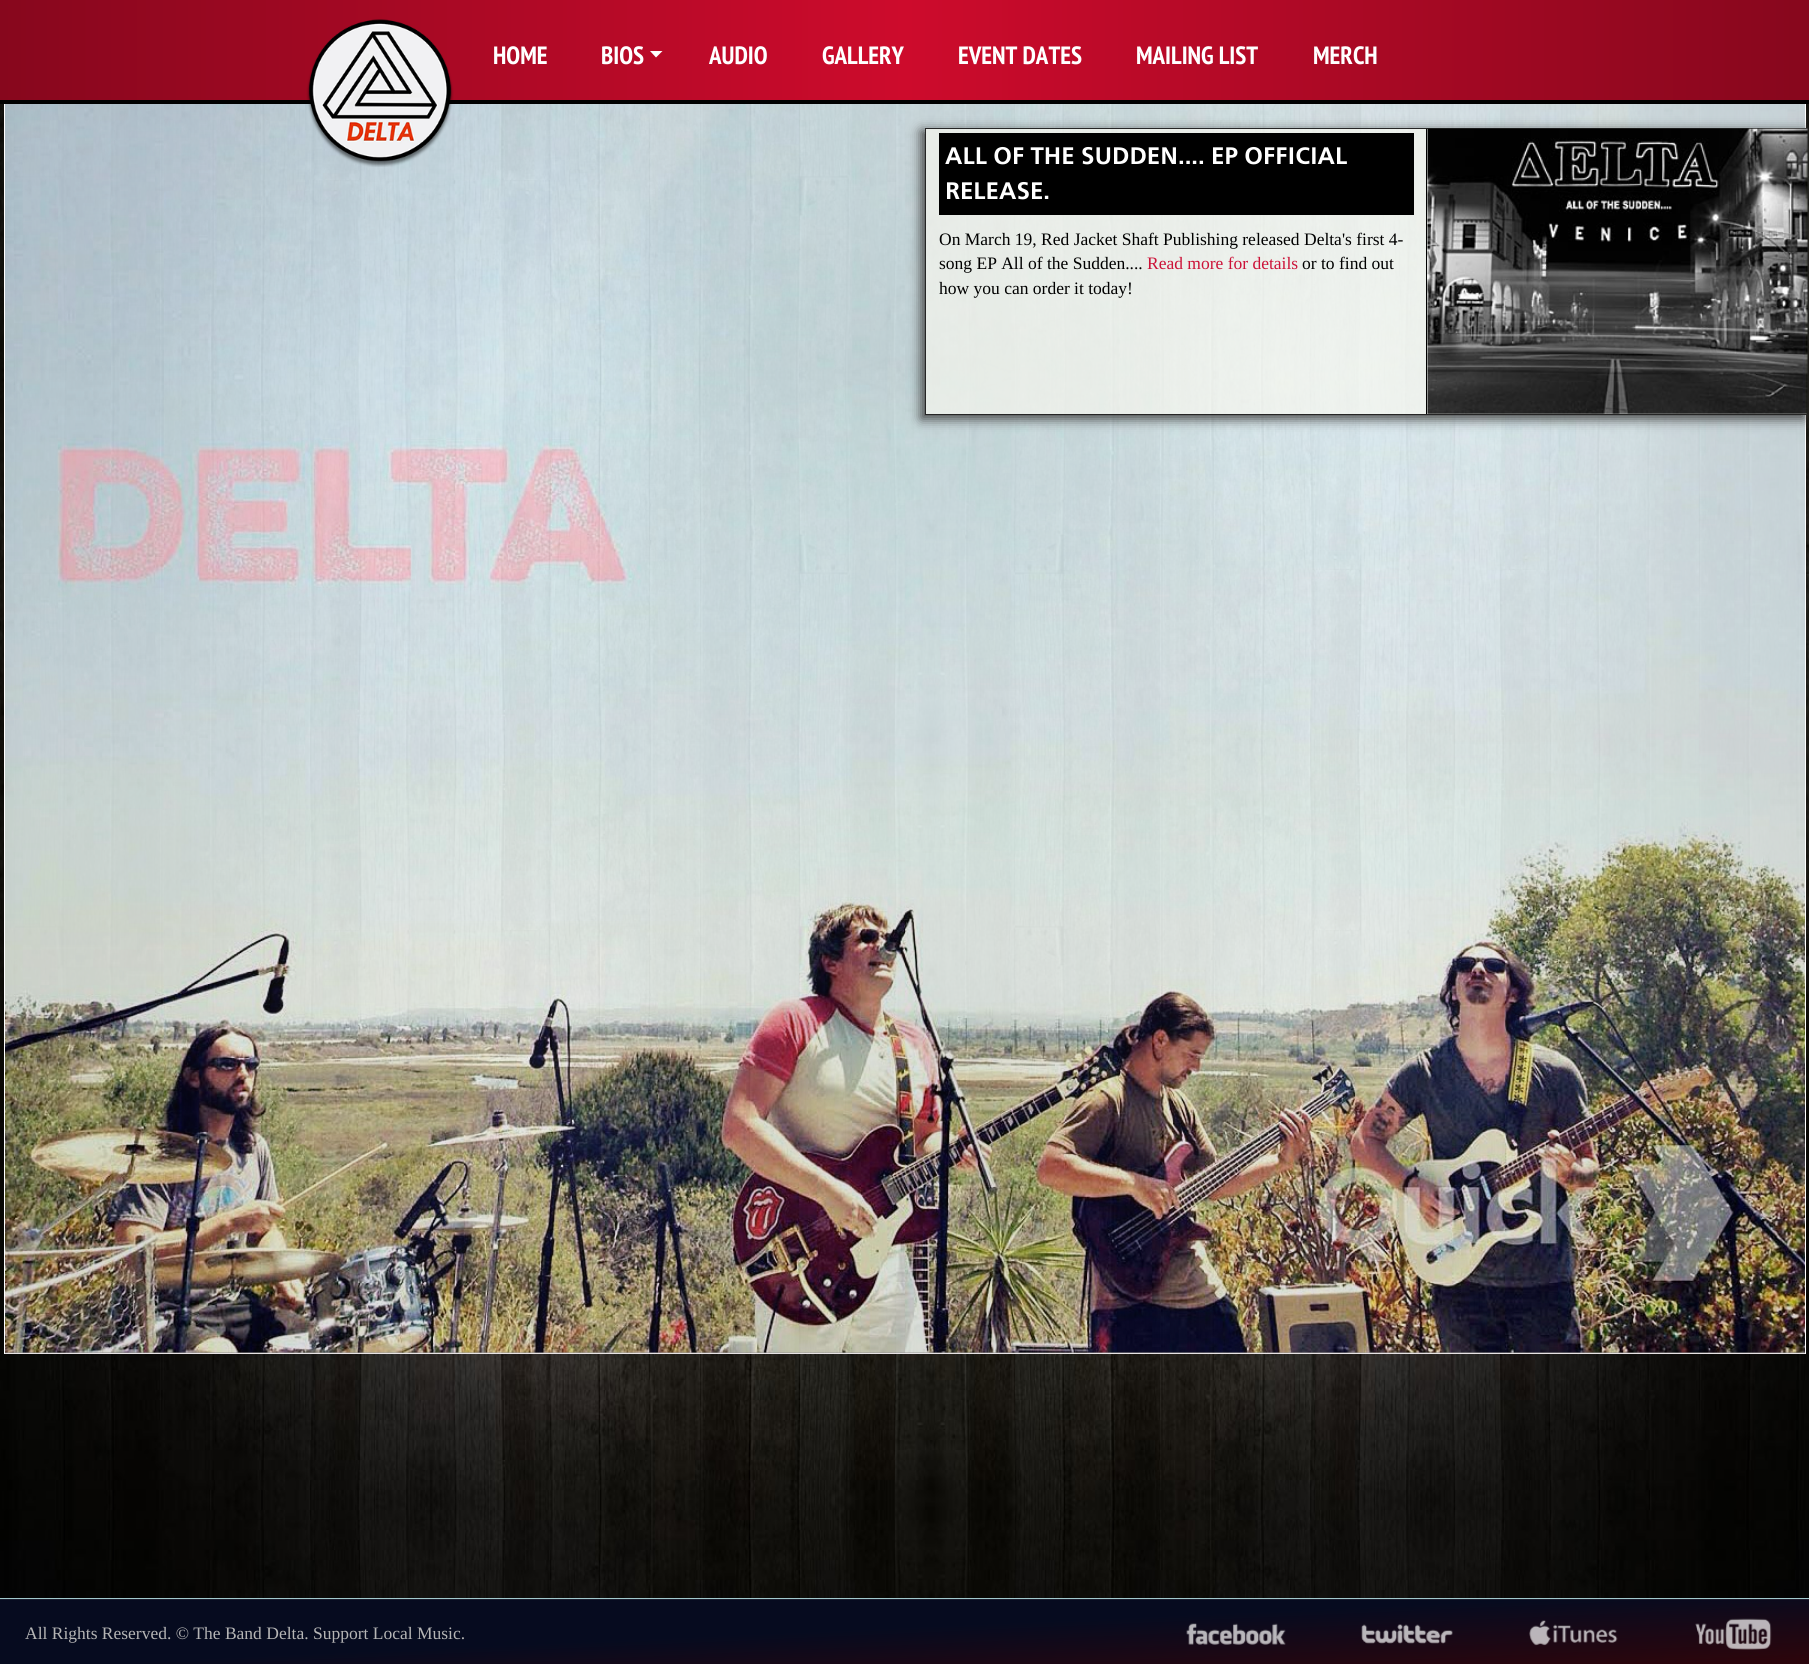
import math
import cairo

surface = cairo.ImageSurface(cairo.FORMAT_RGB24, 1809, 1664)
cr = cairo.Context(surface)
options = cairo.FontOptions()
options.set_hint_metrics(cairo.HINT_METRICS_OFF)
options.set_hint_style(cairo.HINT_STYLE_NONE)
cr.set_font_options(options)
cr.set_miter_limit(4)


def rgb(code):
    cr.set_source_rgb(*(v / 255 for v in bytes.fromhex(code[-6:])))


def rrect(x, y, w, h, r):
    cr.new_sub_path()
    for i, (u, v) in enumerate([(x + w - r, y + h - r), (x + r, y + h - r), (x + r, y + r), (x + w - r, y + r)]):
        cr.arc(u, v, r, i * math.pi / 2, (i + 1) * math.pi / 2)
    cr.close_path()


def soft_shadow(x, y, w, h, r, blur, alpha):
    cr.push_group_with_content(cairo.CONTENT_ALPHA)
    cr.set_operator(cairo.OPERATOR_SOURCE)
    for i in range(15, -16, -2):
        e = blur * i / 6
        if min(w, h) + 2 * e > 0:
            cr.set_source_rgba(0, 0, 0, alpha * math.erfc((i - 1) / 8.5) / 2)
            rrect(x - e, y - e, w + 2 * e, h + 2 * e, max(0, min(r + e + blur * .6, min(w, h) / 2 + e)))
            cr.fill()
    cr.mask(cr.pop_group())


def image(path, x, y, w, h):
    cr.save()
    cr.set_source_surface(cairo.ImageSurface.create_from_png(path), x, y)
    cr.rectangle(x, y, w, h)
    cr.fill()
    cr.restore()


rgb("#ffffff")
cr.paint()
image("img/1.png", 0, 104, 1809, 1494)
gradient = cairo.LinearGradient(0, 50, 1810, 50)
gradient.add_color_stop_rgba(0, 0.529, 0.027, 0.114, 1)
gradient.add_color_stop_rgba(0.5, 0.804, 0.043, 0.173, 1)
gradient.add_color_stop_rgba(1, 0.529, 0.027, 0.114, 1)
cr.set_source(gradient)
cr.rectangle(0, 0, 1809, 100)
cr.fill()
for x, y, w, h, color in [
    (1805, 103, 1, 1251, "#ffffff"),
    (4, 103, 1, 1251, "#ffffff"),
    (0, 100, 1809, 4, "#000000"),
]:
    rgb(color)
    cr.rectangle(x, y, w, h)
    cr.fill()
image("img/5.png", 5, 1352, 1800, 1)
image("img/3.png", 5, 104, 1800, 1249)
image("img/2.png", 306, 19, 148, 148)
rgb("#ffffff")
cr.new_path()
cr.move_to(650, 51)
cr.line_to(662.5, 51)
cr.line_to(656, 57.5)
cr.close_path()
cr.fill()
cr.save()
cr.set_fill_rule(cairo.FILL_RULE_EVEN_ODD)
cr.new_path()
cr.move_to(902, 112)
cr.line_to(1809, 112)
cr.line_to(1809, 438)
cr.line_to(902, 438)
cr.close_path()
cr.move_to(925, 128)
cr.line_to(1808, 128)
cr.line_to(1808, 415)
cr.line_to(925, 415)
cr.close_path()
cr.clip()
rgb("#444444")
soft_shadow(921, 131, 883, 288, 0, 6, 1)
cr.restore()
cr.set_source_rgba(0.98, 0.976, 0.941, 0.65)
cr.rectangle(925.5, 128.5, 882, 286)
cr.fill_preserve()
rgb("#252525")
cr.set_line_width(1)
cr.stroke()
rgb("#000000")
cr.rectangle(939, 133, 475, 82)
cr.fill()
cr.rectangle(1426, 129, 1, 285)
cr.fill()
image("img/4.png", 1427, 128, 381, 286)
rgb("#e7e3e4")
cr.rectangle(5, 1353, 1800, 1)
cr.fill()
gradient = cairo.LinearGradient(902, 1564, 908, 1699)
gradient.add_color_stop_rgba(0.47, 0.024, 0.043, 0.122, 1)
gradient.add_color_stop_rgba(1, 0.169, 0.02, 0.047, 1)
cr.set_source(gradient)
cr.rectangle(0, 1599, 1809, 65)
cr.fill()
rgb("#7cb3b9")
cr.rectangle(0, 1598, 1809, 1)
cr.fill()
image("img/6.png", 0, 1598, 1809, 2)
image("img/7.png", 1186, 1623, 100, 22)
image("img/8.png", 1361, 1624, 92, 20)
image("img/9.png", 1529, 1620, 89, 26)
image("img/10.png", 1695, 1618, 77, 32)
cr.select_font_face("PT Sans Narrow", cairo.FONT_SLANT_NORMAL, cairo.FONT_WEIGHT_BOLD)
cr.set_font_size(25)
rgb("#ffffff")
for x, y, s in [
    (493, 64, "HOME"),
    (601, 64, "BIOS"),
    (709, 64, "AUDIO"),
    (822, 64, "GALLERY"),
    (958, 64, "EVENT DATES"),
    (1136, 64, "MAILING LIST"),
    (1313, 64, "MERCH"),
]:
    cr.move_to(x, y)
    cr.show_text(s)
cr.select_font_face("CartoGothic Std", cairo.FONT_SLANT_NORMAL, cairo.FONT_WEIGHT_BOLD)
cr.move_to(945, 164)
cr.show_text("ALL OF THE SUDDEN.... EP OFFICIAL")
cr.move_to(945, 199)
cr.show_text("RELEASE.")
cr.select_font_face("Liberation Serif")
cr.set_font_size(17.5)
rgb("#000000")
cr.move_to(939, 245)
cr.show_text("On March 19, Red Jacket Shaft Publishing released Delta's first 4-")
cr.move_to(939, 269)
cr.show_text("song EP All of the Sudden....")
rgb("#cc1238")
cr.move_to(1147, 269)
cr.show_text("Read more for details")
rgb("#000000")
cr.move_to(1302, 269)
cr.show_text("or to find out")
cr.move_to(939, 294)
cr.show_text("how you can order it today!")
rgb("#b5b5b5")
cr.move_to(25, 1639)
cr.show_text("All Rights Reserved. © The Band Delta. Support Local Music.")
surface.write_to_png("page.png")
